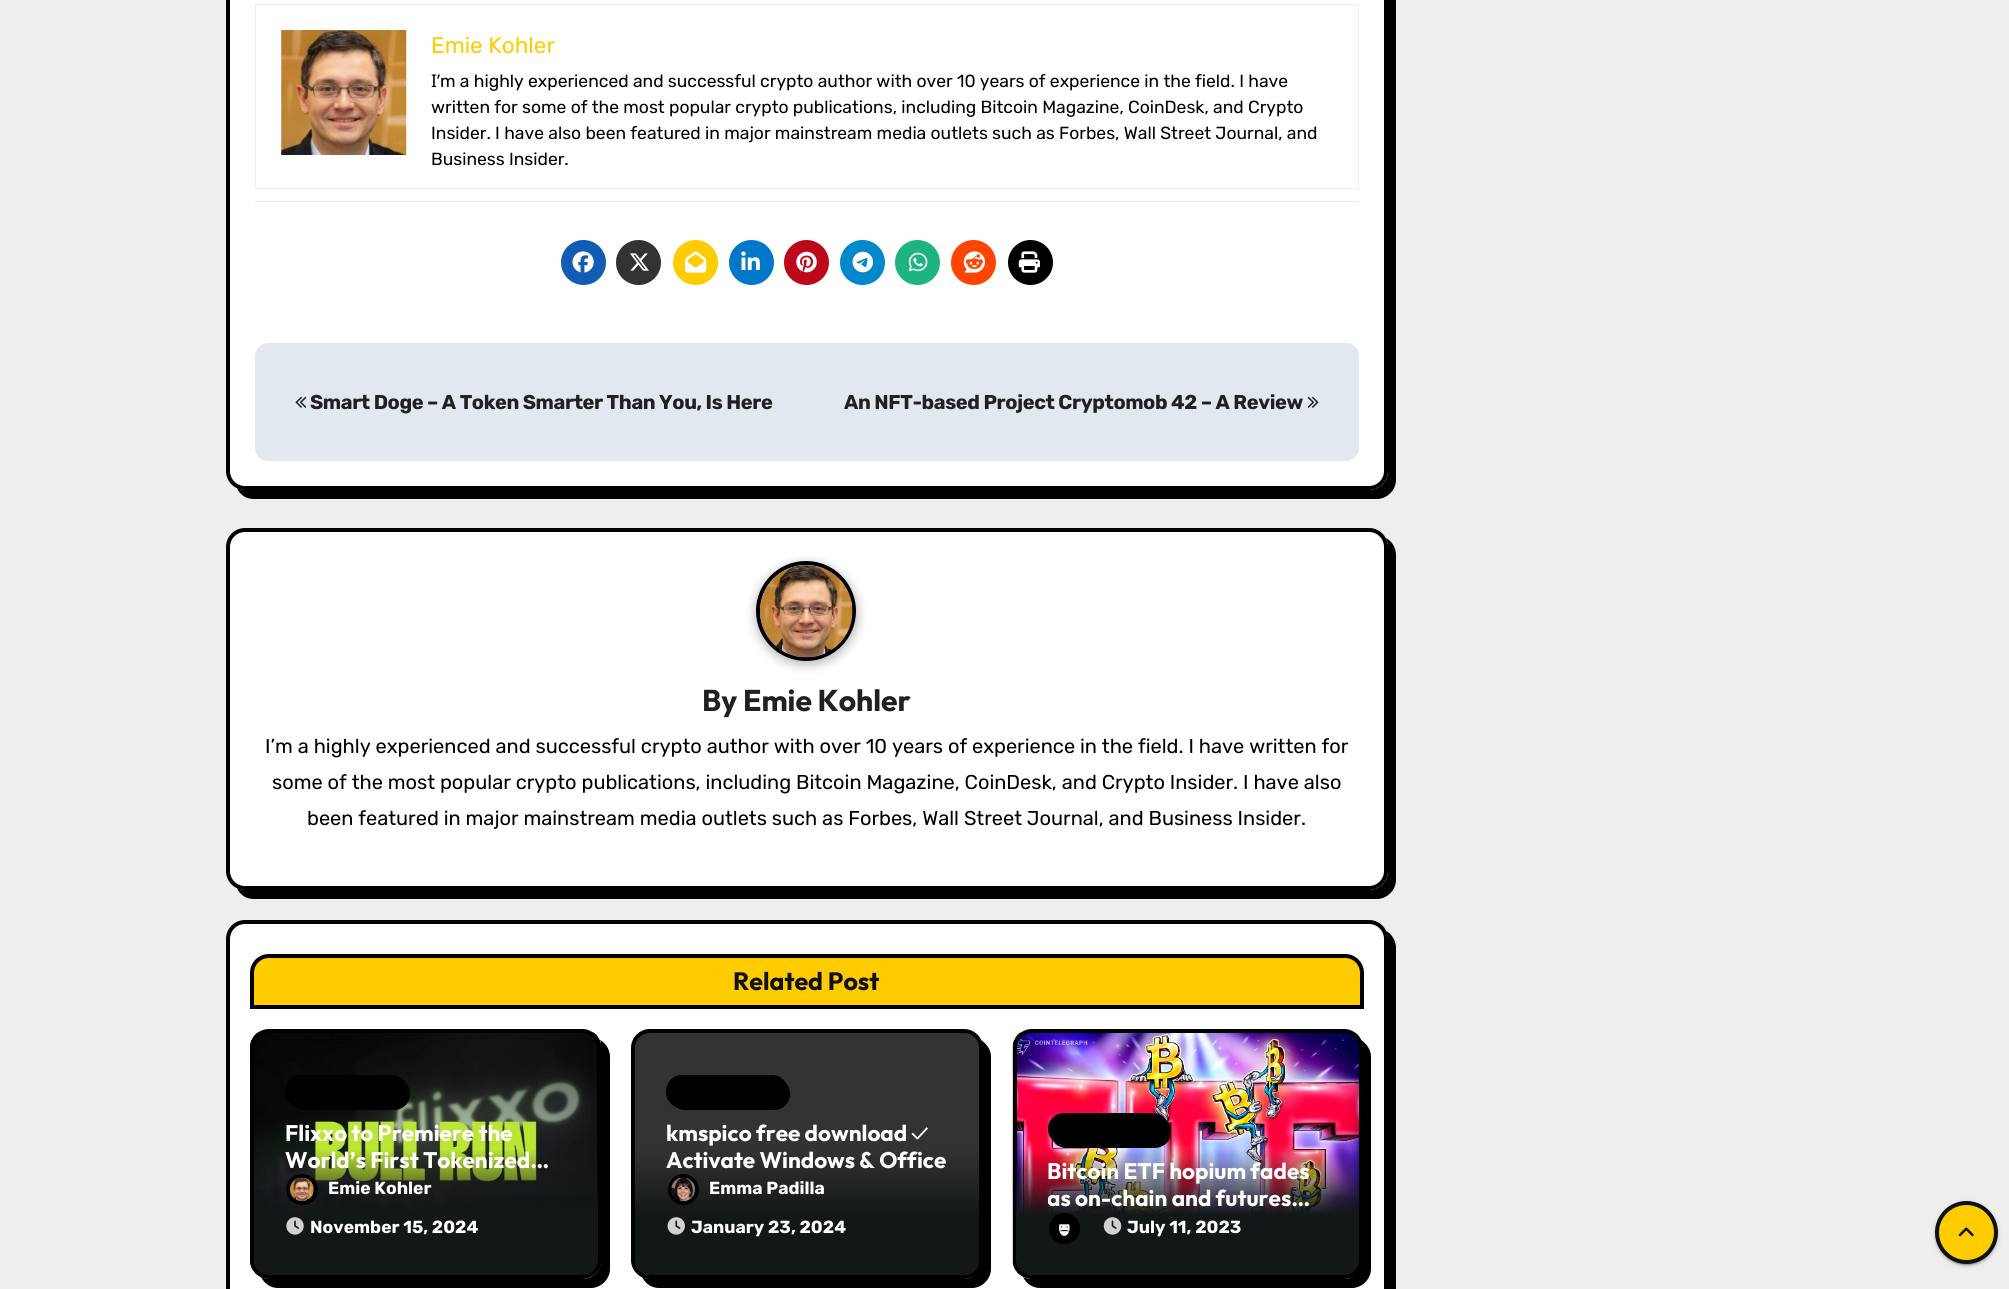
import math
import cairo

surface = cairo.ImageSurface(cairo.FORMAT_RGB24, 2009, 1289)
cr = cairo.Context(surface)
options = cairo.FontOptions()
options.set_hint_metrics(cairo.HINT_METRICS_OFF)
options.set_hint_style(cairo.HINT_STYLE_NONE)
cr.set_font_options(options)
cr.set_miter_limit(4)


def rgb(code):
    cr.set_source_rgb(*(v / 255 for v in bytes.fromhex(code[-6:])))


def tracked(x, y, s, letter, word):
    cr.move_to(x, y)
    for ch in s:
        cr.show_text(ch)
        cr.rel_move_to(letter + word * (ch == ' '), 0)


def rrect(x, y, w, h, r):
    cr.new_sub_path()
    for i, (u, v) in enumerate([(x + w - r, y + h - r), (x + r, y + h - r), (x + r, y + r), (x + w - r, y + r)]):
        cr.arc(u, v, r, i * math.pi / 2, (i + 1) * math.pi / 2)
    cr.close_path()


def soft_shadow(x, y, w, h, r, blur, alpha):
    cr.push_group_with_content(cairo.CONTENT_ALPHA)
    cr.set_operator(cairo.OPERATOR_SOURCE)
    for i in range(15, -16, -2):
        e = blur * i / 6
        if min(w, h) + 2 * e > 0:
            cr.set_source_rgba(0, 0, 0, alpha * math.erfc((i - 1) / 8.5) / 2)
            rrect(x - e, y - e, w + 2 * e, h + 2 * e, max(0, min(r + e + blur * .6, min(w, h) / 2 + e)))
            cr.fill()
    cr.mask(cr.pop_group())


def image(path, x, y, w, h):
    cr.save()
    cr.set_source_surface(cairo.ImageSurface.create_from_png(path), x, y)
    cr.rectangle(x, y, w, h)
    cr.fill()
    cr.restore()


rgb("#eeeeee")
cr.paint()
rgb("#000000")
cr.new_path()
cr.move_to(237, 488)
cr.curve_to(240, 495, 246, 499, 254, 499)
cr.line_to(1377, 499)
cr.curve_to(1387, 499, 1396, 490, 1396, 480)
cr.line_to(1396, -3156)
cr.curve_to(1396, -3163, 1392, -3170, 1386, -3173)
cr.curve_to(1387, -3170, 1388, -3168, 1388, -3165)
cr.line_to(1388, 471)
cr.curve_to(1388, 482, 1379, 490, 1369, 490)
cr.line_to(245, 490)
cr.curve_to(242, 490, 239, 489, 237, 488)
cr.close_path()
cr.fill()
rgb("#ffffff")
rrect(228, -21, 1158, 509, 17)
cr.fill_preserve()
rgb("#000000")
cr.set_line_width(4)
cr.stroke()
cr.rectangle(255.5, 4.5, 1103, 184)
rgb("#eeeeee")
cr.set_line_width(1)
cr.stroke()
image("img/1.png", 281, 30, 126, 125)
rgb("#e2e8f0")
cr.rectangle(255, 201, 1104, 1)
cr.fill()
rgb("#135cb6")
cr.arc(583.5, 262.5, 22.5, 0, 2 * math.pi)
cr.fill()
image("img/2.png", 572, 251, 22, 22)
rgb("#333333")
cr.arc(638.5, 262.5, 22.5, 0, 2 * math.pi)
cr.fill()
image("img/3.png", 630, 253, 19, 18)
rgb("#ffcc00")
cr.arc(695.5, 262.5, 22.5, 0, 2 * math.pi)
cr.fill()
image("img/4.png", 685, 251, 22, 22)
rgb("#0078ca")
cr.arc(751.5, 262.5, 22.5, 0, 2 * math.pi)
cr.fill()
image("img/5.png", 741, 251, 19, 19)
rgb("#bd081c")
cr.arc(806.5, 262.5, 22.5, 0, 2 * math.pi)
cr.fill()
image("img/6.png", 796, 251, 21, 22)
rgb("#0088cc")
cr.arc(862.5, 262.5, 22.5, 0, 2 * math.pi)
cr.fill()
image("img/7.png", 852, 251, 22, 22)
rgb("#1fb381")
cr.arc(917.5, 262.5, 22.5, 0, 2 * math.pi)
cr.fill()
image("img/8.png", 908, 252, 20, 20)
rgb("#ff4500")
cr.arc(973.5, 262.5, 22.5, 0, 2 * math.pi)
cr.fill()
image("img/9.png", 963, 251, 22, 22)
rgb("#000000")
cr.arc(1030.5, 262.5, 22.5, 0, 2 * math.pi)
cr.fill()
image("img/10.png", 1018, 251, 22, 22)
rgb("#e2e8f0")
rrect(255, 343, 1104, 118, 13)
cr.fill()
image("img/11.png", 295, 396, 12, 12)
image("img/12.png", 1307, 396, 12, 12)
rgb("#000000")
cr.new_path()
cr.move_to(237, 888)
cr.curve_to(240, 895, 246, 899, 254, 899)
cr.line_to(1377, 899)
cr.curve_to(1387, 899, 1396, 890, 1396, 880)
cr.line_to(1396, 555)
cr.curve_to(1396, 548, 1392, 541, 1386, 538)
cr.curve_to(1387, 541, 1388, 543, 1388, 546)
cr.line_to(1388, 871)
cr.curve_to(1388, 882, 1379, 890, 1369, 890)
cr.line_to(245, 890)
cr.curve_to(242, 890, 239, 889, 237, 888)
cr.close_path()
cr.fill()
rgb("#ffffff")
rrect(228, 530, 1158, 358, 17)
cr.fill_preserve()
rgb("#000000")
cr.set_line_width(4)
cr.stroke()
rgb("#212121")
soft_shadow(755, 563, 103, 102, 51, 5, 0.3)
cr.arc(806, 611, 48, 0, 2 * math.pi)
rgb("#000000")
cr.stroke()
image("img/13.png", 760, 565, 93, 93)
cr.new_path()
cr.move_to(237, 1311)
cr.curve_to(240, 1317, 247, 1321, 254, 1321)
cr.line_to(1377, 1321)
cr.curve_to(1387, 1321, 1396, 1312, 1396, 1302)
cr.line_to(1396, 948)
cr.curve_to(1396, 941, 1392, 934, 1386, 931)
cr.curve_to(1387, 934, 1388, 936, 1388, 939)
cr.line_to(1388, 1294)
cr.curve_to(1388, 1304, 1379, 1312, 1369, 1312)
cr.line_to(245, 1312)
cr.curve_to(242, 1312, 240, 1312, 237, 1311)
cr.close_path()
cr.fill()
rgb("#ffffff")
rrect(228, 922, 1158, 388, 17)
cr.fill_preserve()
rgb("#000000")
cr.stroke()
rgb("#ffcc00")
cr.new_path()
cr.move_to(269, 956)
cr.line_to(1345, 956)
cr.curve_to(1354.5, 956, 1362, 963.5, 1362, 973)
cr.line_to(1362, 1007)
cr.line_to(252, 1007)
cr.line_to(252, 973)
cr.curve_to(252, 963.5, 259.5, 956, 269, 956)
cr.close_path()
cr.fill_preserve()
rgb("#000000")
cr.stroke()
cr.new_path()
cr.move_to(261, 1277)
cr.curve_to(264, 1283, 270, 1288, 278, 1288)
cr.line_to(591, 1288)
cr.curve_to(601, 1288, 610, 1279, 610, 1269)
cr.line_to(610, 1057)
cr.curve_to(610, 1050, 606, 1043, 600, 1040)
cr.curve_to(601, 1042, 601, 1045, 601, 1048)
cr.line_to(601, 1260)
cr.curve_to(601, 1270, 593, 1279, 582, 1279)
cr.line_to(269, 1279)
cr.curve_to(266, 1279, 263, 1278, 261, 1277)
cr.close_path()
cr.fill()
image("img/14.png", 250, 1032, 351, 243)
rrect(252, 1031, 347, 246, 17)
cr.stroke()
gradient = cairo.LinearGradient(426, 1033, 426, 1275)
gradient.add_color_stop_rgba(0.48, 0.071, 0.09, 0.094, 0)
gradient.add_color_stop_rgba(0.75, 0.071, 0.09, 0.094, 1)
cr.set_source(gradient)
rrect(254, 1033, 344, 242, 15)
cr.fill()
rgb("#000000")
cr.new_path()
cr.move_to(292, 1105)
cr.curve_to(295, 1108, 299, 1110, 304, 1110)
cr.line_to(394, 1110)
cr.curve_to(403, 1110, 410, 1103, 410, 1094)
cr.curve_to(410, 1089, 408, 1085, 405, 1082)
cr.curve_to(406, 1085, 408, 1088, 408, 1091)
cr.curve_to(408, 1100, 400, 1108, 391, 1108)
cr.line_to(301, 1108)
cr.curve_to(298, 1108, 295, 1106, 292, 1105)
cr.close_path()
cr.fill()
cr.new_path()
cr.move_to(302, 1075)
cr.line_to(392, 1075)
cr.curve_to(401, 1075, 408, 1082, 408, 1092)
cr.curve_to(408, 1101, 401, 1108, 392, 1108)
cr.line_to(302, 1108)
cr.curve_to(292, 1108, 285, 1101, 285, 1092)
cr.curve_to(285, 1082, 292, 1075, 302, 1075)
cr.close_path()
cr.fill()
cr.new_path()
cr.move_to(301.5, 1174)
cr.curve_to(322.5, 1174, 324, 1203.5, 302.5, 1205)
cr.curve_to(299, 1205.5, 295.5, 1204, 293, 1202.5)
cr.curve_to(280.5, 1194, 286.5, 1174, 301.5, 1174)
cr.close_path()
cr.fill()
image("img/15.png", 290, 1177, 24, 25)
image("img/16.png", 286, 1217, 18, 18)
cr.new_path()
cr.move_to(642, 1277)
cr.curve_to(645, 1283, 651, 1288, 659, 1288)
cr.line_to(972, 1288)
cr.curve_to(982, 1288, 991, 1279, 991, 1269)
cr.line_to(991, 1057)
cr.curve_to(991, 1050, 987, 1044, 981, 1040)
cr.curve_to(982, 1043, 982, 1045, 982, 1048)
cr.line_to(982, 1260)
cr.curve_to(982, 1270, 974, 1279, 964, 1279)
cr.line_to(650, 1279)
cr.curve_to(647, 1279, 644, 1278, 642, 1277)
cr.close_path()
cr.fill()
rgb("#333333")
rrect(633, 1031, 348, 246, 17)
cr.fill_preserve()
rgb("#000000")
cr.stroke()
gradient = cairo.LinearGradient(807, 1033, 807, 1275)
gradient.add_color_stop_rgba(0.48, 0.071, 0.09, 0.094, 0)
gradient.add_color_stop_rgba(0.75, 0.071, 0.09, 0.094, 1)
cr.set_source(gradient)
rrect(635, 1033, 344, 242, 15)
cr.fill()
rgb("#000000")
cr.new_path()
cr.move_to(673, 1104)
cr.curve_to(676, 1108, 680, 1110, 685, 1110)
cr.line_to(774, 1110)
cr.curve_to(783, 1110, 790, 1103, 790, 1094)
cr.curve_to(790, 1089, 788, 1085, 785, 1082)
cr.curve_to(786, 1085, 788, 1088, 788, 1091)
cr.curve_to(788, 1100, 780, 1108, 771, 1108)
cr.line_to(682, 1108)
cr.curve_to(679, 1108, 675, 1106, 673, 1104)
cr.close_path()
cr.fill()
cr.new_path()
cr.move_to(682, 1075)
cr.line_to(772, 1075)
cr.curve_to(781, 1075, 788, 1082, 788, 1092)
cr.curve_to(788, 1101, 781, 1108, 772, 1108)
cr.line_to(682, 1108)
cr.curve_to(673, 1108, 666, 1101, 666, 1092)
cr.curve_to(666, 1082, 673, 1075, 682, 1075)
cr.close_path()
cr.fill()
cr.new_path()
cr.move_to(683.5, 1174)
cr.curve_to(692, 1174, 699, 1181, 699, 1189.5)
cr.curve_to(699, 1198, 692, 1205, 683.5, 1205)
cr.curve_to(675, 1205, 668, 1198, 668, 1189.5)
cr.curve_to(668, 1181, 675, 1174, 683.5, 1174)
cr.close_path()
cr.fill()
image("img/17.png", 671, 1177, 24, 25)
image("img/18.png", 667, 1217, 18, 18)
cr.new_path()
cr.move_to(1023, 1277)
cr.curve_to(1026, 1283, 1032, 1288, 1040, 1288)
cr.line_to(1352, 1288)
cr.curve_to(1362, 1288, 1371, 1279, 1371, 1269)
cr.line_to(1371, 1057)
cr.curve_to(1371, 1050, 1367, 1044, 1361, 1040)
cr.curve_to(1362, 1043, 1362, 1045, 1362, 1048)
cr.line_to(1362, 1260)
cr.curve_to(1362, 1270, 1354, 1279, 1344, 1279)
cr.line_to(1031, 1279)
cr.curve_to(1028, 1279, 1025, 1278, 1023, 1277)
cr.close_path()
cr.fill()
image("img/19.png", 1012, 1032, 351, 243)
rrect(1015, 1031, 346, 246, 17)
cr.stroke()
gradient = cairo.LinearGradient(1188, 1033, 1188, 1275)
gradient.add_color_stop_rgba(0.48, 0.071, 0.09, 0.094, 0)
gradient.add_color_stop_rgba(0.75, 0.071, 0.09, 0.094, 1)
cr.set_source(gradient)
rrect(1016, 1033, 343, 242, 15)
cr.fill()
rgb("#000000")
cr.new_path()
cr.move_to(1053, 1141)
cr.curve_to(1056, 1145, 1061, 1148, 1066, 1148)
cr.line_to(1154, 1148)
cr.curve_to(1164, 1148, 1171, 1141, 1171, 1132)
cr.curve_to(1171, 1127, 1169, 1123, 1166, 1120)
cr.curve_to(1168, 1122, 1169, 1125, 1169, 1129)
cr.curve_to(1169, 1138, 1161, 1145, 1152, 1145)
cr.line_to(1064, 1145)
cr.curve_to(1060, 1145, 1056, 1143, 1053, 1141)
cr.close_path()
cr.fill()
cr.new_path()
cr.move_to(1064, 1113)
cr.line_to(1153, 1113)
cr.curve_to(1162, 1113, 1169, 1120, 1169, 1129)
cr.curve_to(1169, 1138, 1162, 1145, 1153, 1145)
cr.line_to(1064, 1145)
cr.curve_to(1055, 1145, 1048, 1138, 1048, 1129)
cr.curve_to(1048, 1120, 1055, 1113, 1064, 1113)
cr.close_path()
cr.fill()
cr.new_path()
cr.move_to(1064.5, 1213)
cr.curve_to(1073, 1213, 1080, 1220, 1080, 1228.5)
cr.curve_to(1080, 1237, 1073, 1244, 1064.5, 1244)
cr.curve_to(1056, 1244, 1049, 1237, 1049, 1228.5)
cr.curve_to(1049, 1220, 1056, 1213, 1064.5, 1213)
cr.close_path()
cr.fill()
image("img/20.png", 1058, 1224, 12, 13)
image("img/21.png", 1103, 1217, 19, 18)
rgb("#000000")
soft_shadow(1935, 1203, 63, 62, 31, 3, 0.12)
soft_shadow(1938, 1208, 57, 57, 28.5, 0.5, 0.2)
soft_shadow(1935, 1204, 63, 62, 31, 1, 0.14)
rgb("#ffcc00")
cr.arc(1966.5, 1232.5, 29.5, 0, 2 * math.pi)
cr.fill_preserve()
rgb("#0f1012")
cr.stroke()
image("img/22.png", 1958, 1227, 16, 10)
cr.select_font_face("Rubik Light")
cr.set_font_size(22.5)
rgb("#ffcc00")
cr.move_to(431, 53)
cr.show_text("Emie Kohler")
cr.select_font_face("Noto Sans")
cr.set_font_size(17.5)
rgb("#000000")
cr.move_to(431, 87)
cr.show_text("I’")
cr.select_font_face("Rubik Light")
for x, y, s in [
    (440, 87, "m a highly experienced and successful crypto author with over 10 years of experience in the field. I have"),
    (431, 113, "written for some of the most popular crypto publications, including Bitcoin Magazine, CoinDesk, and Crypto"),
    (431, 139, "Insider. I have also been featured in major mainstream media outlets such as Forbes, Wall Street Journal, and"),
    (431, 165, "Business Insider."),
]:
    cr.move_to(x, y)
    cr.show_text(s)
cr.select_font_face("Rubik", cairo.FONT_SLANT_NORMAL, cairo.FONT_WEIGHT_BOLD)
cr.set_font_size(20)
rgb("#212121")
tracked(310, 409, "Smart Doge – A Token Smarter Than You, Is Here", -0.4, 0)
tracked(844, 409, "An NFT-based Project Cryptomob 42 – A Review", -0.4, 0)
cr.select_font_face("Outfit", cairo.FONT_SLANT_NORMAL, cairo.FONT_WEIGHT_BOLD)
cr.set_font_size(30)
cr.move_to(702, 711)
cr.show_text("By Emie Kohler")
cr.select_font_face("Rubik Light")
cr.set_font_size(20)
rgb("#000000")
for x, y, s in [
    (265, 753, "I’m a highly experienced and successful crypto author with over 10 years of experience in the field. I have written for"),
    (272, 789, "some of the most popular crypto publications, including Bitcoin Magazine, CoinDesk, and Crypto Insider. I have also"),
    (307, 825, "been featured in major mainstream media outlets such as Forbes, Wall Street Journal, and Business Insider."),
]:
    cr.move_to(x, y)
    cr.show_text(s)
cr.select_font_face("Outfit", cairo.FONT_SLANT_NORMAL, cairo.FONT_WEIGHT_BOLD)
cr.set_font_size(25)
rgb("#0f1012")
cr.move_to(733, 990)
cr.show_text("Related Post")
cr.set_font_size(22.5)
rgb("#ffffff")
cr.move_to(285, 1141)
cr.show_text("Flixxo to Premiere the")
cr.move_to(285, 1168)
cr.show_text("World’s First Tokenized…")
cr.select_font_face("Rubik", cairo.FONT_SLANT_NORMAL, cairo.FONT_WEIGHT_BOLD)
cr.set_font_size(17.5)
cr.move_to(328, 1194)
cr.show_text("Emie Kohler")
cr.move_to(310, 1233)
cr.show_text("November 15, 2024")
cr.select_font_face("Outfit", cairo.FONT_SLANT_NORMAL, cairo.FONT_WEIGHT_BOLD)
cr.set_font_size(22.5)
cr.move_to(666, 1141)
cr.show_text("kmspico free download")
cr.select_font_face("Outfit")
cr.move_to(911, 1141)
cr.show_text("✓")
cr.select_font_face("Outfit", cairo.FONT_SLANT_NORMAL, cairo.FONT_WEIGHT_BOLD)
cr.move_to(666, 1168)
cr.show_text("Activate Windows & Office")
cr.select_font_face("Rubik", cairo.FONT_SLANT_NORMAL, cairo.FONT_WEIGHT_BOLD)
cr.set_font_size(17.5)
cr.move_to(709, 1194)
cr.show_text("Emma Padilla")
cr.move_to(691, 1233)
cr.show_text("January 23, 2024")
cr.select_font_face("Outfit", cairo.FONT_SLANT_NORMAL, cairo.FONT_WEIGHT_BOLD)
cr.set_font_size(22.5)
cr.move_to(1047, 1179)
cr.show_text("Bitcoin ETF hopium fades")
cr.save()
cr.rectangle(1048, 1158, 280, 53)
cr.clip()
cr.move_to(1047, 1206)
cr.show_text("as on-chain and futures…")
cr.restore()
cr.select_font_face("Rubik", cairo.FONT_SLANT_NORMAL, cairo.FONT_WEIGHT_BOLD)
cr.set_font_size(17.5)
cr.move_to(1127, 1233)
cr.show_text("July 11, 2023")
surface.write_to_png("page.png")
